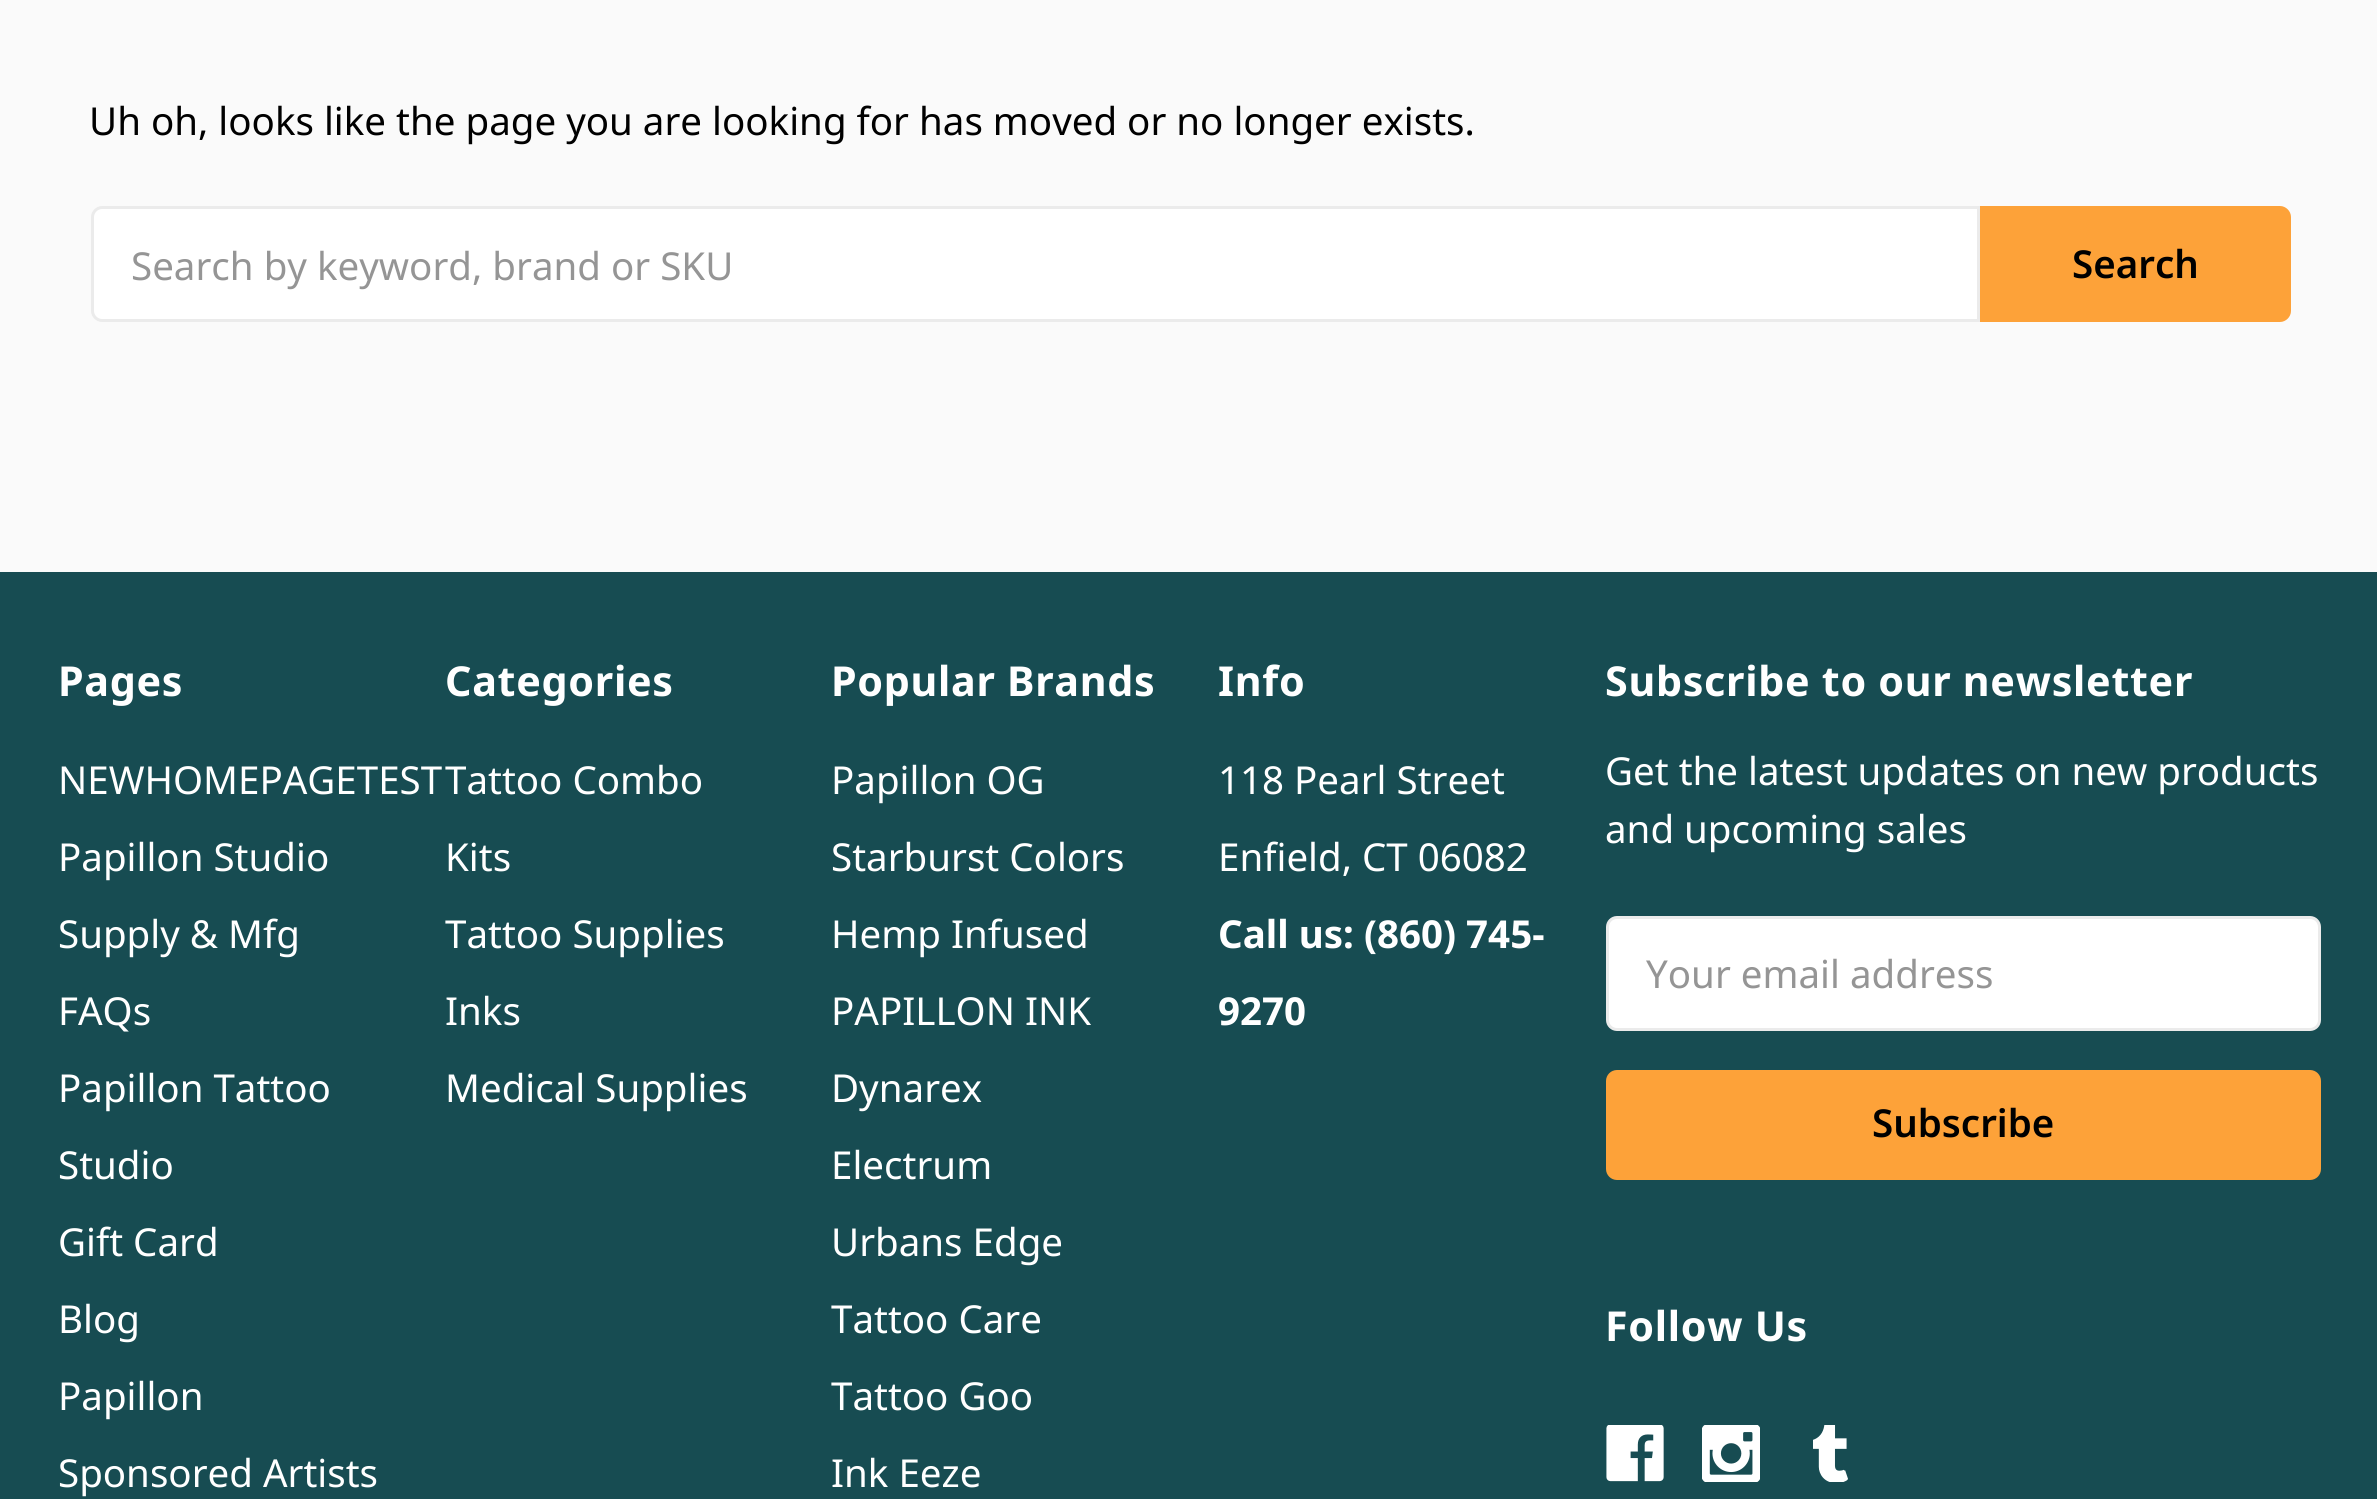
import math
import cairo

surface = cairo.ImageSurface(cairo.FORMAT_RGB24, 2377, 1499)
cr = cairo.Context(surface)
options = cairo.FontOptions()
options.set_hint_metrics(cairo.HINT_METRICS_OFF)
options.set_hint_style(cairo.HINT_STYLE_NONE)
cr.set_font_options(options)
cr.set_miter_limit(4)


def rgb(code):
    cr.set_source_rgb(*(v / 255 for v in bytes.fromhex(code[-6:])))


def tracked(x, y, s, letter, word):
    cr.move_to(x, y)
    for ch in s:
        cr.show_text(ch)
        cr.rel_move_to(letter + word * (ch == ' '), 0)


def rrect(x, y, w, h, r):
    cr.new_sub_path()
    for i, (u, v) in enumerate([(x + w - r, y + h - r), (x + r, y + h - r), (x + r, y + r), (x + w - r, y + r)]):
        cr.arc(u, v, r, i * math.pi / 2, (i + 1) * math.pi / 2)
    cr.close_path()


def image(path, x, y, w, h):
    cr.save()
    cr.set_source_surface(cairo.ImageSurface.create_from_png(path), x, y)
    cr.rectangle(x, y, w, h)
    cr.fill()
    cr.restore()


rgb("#fafafa")
cr.paint()
rgb("#ffffff")
cr.new_path()
cr.move_to(102, 207.5)
cr.line_to(1978.5, 207.5)
cr.line_to(1978.5, 320.5)
cr.line_to(102, 320.5)
cr.curve_to(97, 320.5, 92.5, 316, 92.5, 311)
cr.line_to(92.5, 217)
cr.curve_to(92.5, 212, 97, 207.5, 102, 207.5)
cr.close_path()
cr.fill_preserve()
rgb("#ebebeb")
cr.set_line_width(3)
cr.stroke()
rgb("#fda239")
cr.new_path()
cr.move_to(1981.5, 207.5)
cr.line_to(2280, 207.5)
cr.curve_to(2285, 207.5, 2289.5, 212, 2289.5, 217)
cr.line_to(2289.5, 311)
cr.curve_to(2289.5, 316, 2285, 320.5, 2280, 320.5)
cr.line_to(1981.5, 320.5)
cr.close_path()
cr.fill_preserve()
cr.stroke()
rgb("#174c52")
cr.rectangle(0, 572, 2377, 927)
cr.fill()
rgb("#ffffff")
rrect(1607.5, 917.5, 712, 112, 9.5)
cr.fill_preserve()
rgb("#ebebeb")
cr.stroke()
rgb("#fda239")
rrect(1607.5, 1071.5, 712, 107, 9.5)
cr.fill_preserve()
cr.stroke()
image("img/1.png", 1606, 1425, 58, 57)
image("img/2.png", 1702, 1425, 58, 57)
image("img/3.png", 1813, 1425, 35, 57)
cr.select_font_face("Noto Sans")
cr.set_font_size(38.5)
rgb("#000000")
cr.move_to(89, 135)
cr.show_text("Uh oh, looks like the page you are looking for has moved or no longer exists.")
rgb("#959595")
cr.move_to(131, 280)
cr.show_text("Search by keyword, brand or SKU")
cr.select_font_face("Noto Sans SemiBold")
rgb("#000000")
cr.move_to(2072, 278)
cr.show_text("Search")
cr.select_font_face("Noto Sans", cairo.FONT_SLANT_NORMAL, cairo.FONT_WEIGHT_BOLD)
cr.set_font_size(41.25)
rgb("#ffffff")
tracked(58, 696, "Pages", 0.7, 0)
cr.select_font_face("Noto Sans")
cr.set_font_size(38.5)
for x, y, s in [
    (58, 794, "NEWHOMEPAGETEST"),
    (58, 871, "Papillon Studio"),
    (58, 948, "Supply & Mfg"),
    (58, 1025, "FAQs"),
    (58, 1102, "Papillon Tattoo"),
    (58, 1179, "Studio"),
    (58, 1256, "Gift Card"),
    (58, 1333, "Blog"),
    (58, 1410, "Papillon"),
    (58, 1487, "Sponsored Artists"),
]:
    cr.move_to(x, y)
    cr.show_text(s)
cr.select_font_face("Noto Sans", cairo.FONT_SLANT_NORMAL, cairo.FONT_WEIGHT_BOLD)
cr.set_font_size(41.25)
tracked(445, 696, "Categories", 0.7, 0)
cr.select_font_face("Noto Sans")
cr.set_font_size(38.5)
for x, y, s in [
    (445, 794, "Tattoo Combo"),
    (445, 871, "Kits"),
    (445, 948, "Tattoo Supplies"),
    (445, 1025, "Inks"),
    (445, 1102, "Medical Supplies"),
]:
    cr.move_to(x, y)
    cr.show_text(s)
cr.select_font_face("Noto Sans", cairo.FONT_SLANT_NORMAL, cairo.FONT_WEIGHT_BOLD)
cr.set_font_size(41.25)
tracked(831, 696, "Popular Brands", 0.7, 0)
cr.select_font_face("Noto Sans")
cr.set_font_size(38.5)
for x, y, s in [
    (831, 794, "Papillon OG"),
    (831, 871, "Starburst Colors"),
    (831, 948, "Hemp Infused"),
    (831, 1025, "PAPILLON INK"),
    (831, 1102, "Dynarex"),
    (831, 1179, "Electrum"),
    (831, 1256, "Urbans Edge"),
    (831, 1333, "Tattoo Care"),
    (831, 1410, "Tattoo Goo"),
    (831, 1487, "Ink Eeze"),
]:
    cr.move_to(x, y)
    cr.show_text(s)
cr.select_font_face("Noto Sans", cairo.FONT_SLANT_NORMAL, cairo.FONT_WEIGHT_BOLD)
cr.set_font_size(41.25)
tracked(1218, 696, "Info", 0.7, 0)
cr.select_font_face("Noto Sans")
cr.set_font_size(38.5)
cr.move_to(1218, 794)
cr.show_text("118 Pearl Street")
cr.move_to(1218, 871)
cr.show_text("Enfield, CT 06082")
cr.select_font_face("Noto Sans", cairo.FONT_SLANT_NORMAL, cairo.FONT_WEIGHT_BOLD)
cr.move_to(1218, 948)
cr.show_text("Call us: (860) 745-")
cr.move_to(1218, 1025)
cr.show_text("9270")
cr.set_font_size(41.25)
tracked(1605, 696, "Subscribe to our newsletter", 0.7, 0)
cr.select_font_face("Noto Sans")
cr.set_font_size(38.5)
cr.move_to(1605, 785)
cr.show_text("Get the latest updates on new products")
cr.move_to(1605, 843)
cr.show_text("and upcoming sales")
rgb("#959595")
cr.move_to(1646, 988)
cr.show_text("Your email address")
cr.select_font_face("Noto Sans SemiBold")
rgb("#000000")
cr.move_to(1872, 1137)
cr.show_text("Subscribe")
cr.select_font_face("Noto Sans", cairo.FONT_SLANT_NORMAL, cairo.FONT_WEIGHT_BOLD)
cr.set_font_size(41.25)
rgb("#ffffff")
tracked(1605, 1341, "Follow Us", 0.7, 0)
surface.write_to_png("page.png")
